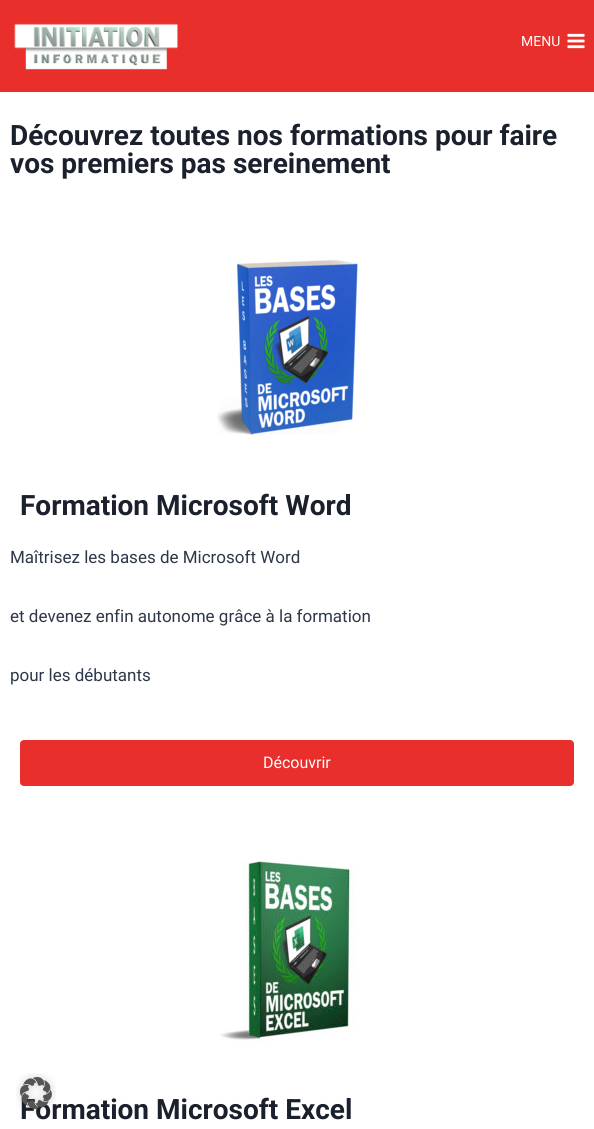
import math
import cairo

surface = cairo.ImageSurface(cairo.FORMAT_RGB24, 594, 1129)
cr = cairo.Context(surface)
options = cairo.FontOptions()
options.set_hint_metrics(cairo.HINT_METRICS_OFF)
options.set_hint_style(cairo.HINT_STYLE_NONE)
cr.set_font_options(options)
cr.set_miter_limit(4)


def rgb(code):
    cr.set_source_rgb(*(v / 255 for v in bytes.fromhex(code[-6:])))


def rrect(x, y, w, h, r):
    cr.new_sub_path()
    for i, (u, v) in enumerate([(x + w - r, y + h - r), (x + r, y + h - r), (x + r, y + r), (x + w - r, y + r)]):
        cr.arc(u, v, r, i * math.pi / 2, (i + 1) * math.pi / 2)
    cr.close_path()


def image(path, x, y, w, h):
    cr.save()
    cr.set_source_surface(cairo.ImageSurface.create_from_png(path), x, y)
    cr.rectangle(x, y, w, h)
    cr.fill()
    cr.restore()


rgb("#ffffff")
cr.paint()
rgb("#e92f2b")
cr.rectangle(0, 0, 594, 92)
cr.fill()
image("img/1.png", 14, 23, 165, 47)
image("img/2.png", 567, 33, 18, 16)
image("img/3.png", 217, 259, 141, 176)
rrect(20, 740, 554, 46, 4)
cr.fill()
image("img/4.png", 220, 860, 135, 184)
cr.select_font_face("Roboto")
cr.set_font_size(14)
rgb("#ffffff")
cr.move_to(521, 46)
cr.show_text("MENU")
cr.select_font_face("Roboto", cairo.FONT_SLANT_NORMAL, cairo.FONT_WEIGHT_BOLD)
cr.set_font_size(28)
rgb("#1a202c")
for x, y, s in [
    (10, 145, "Découvrez toutes nos formations pour faire"),
    (10, 173, "vos premiers pas sereinement"),
    (20, 515, "Formation Microsoft Word"),
]:
    cr.move_to(x, y)
    cr.show_text(s)
cr.select_font_face("Roboto")
cr.set_font_size(17)
rgb("#2d3748")
for x, y, s in [
    (10, 563, "Maîtrisez les bases de Microsoft Word"),
    (10, 622, "et devenez enfin autonome grâce à la formation"),
    (10, 681, "pour les débutants"),
]:
    cr.move_to(x, y)
    cr.show_text(s)
cr.set_font_size(16)
rgb("#ffffff")
cr.move_to(263, 768)
cr.show_text("Découvrir")
cr.select_font_face("Roboto", cairo.FONT_SLANT_NORMAL, cairo.FONT_WEIGHT_BOLD)
cr.set_font_size(28)
rgb("#1a202c")
cr.move_to(20, 1119)
cr.show_text("Formation Microsoft Excel")
image("img/5.png", 16, 1073, 40, 40)
surface.write_to_png("page.png")
